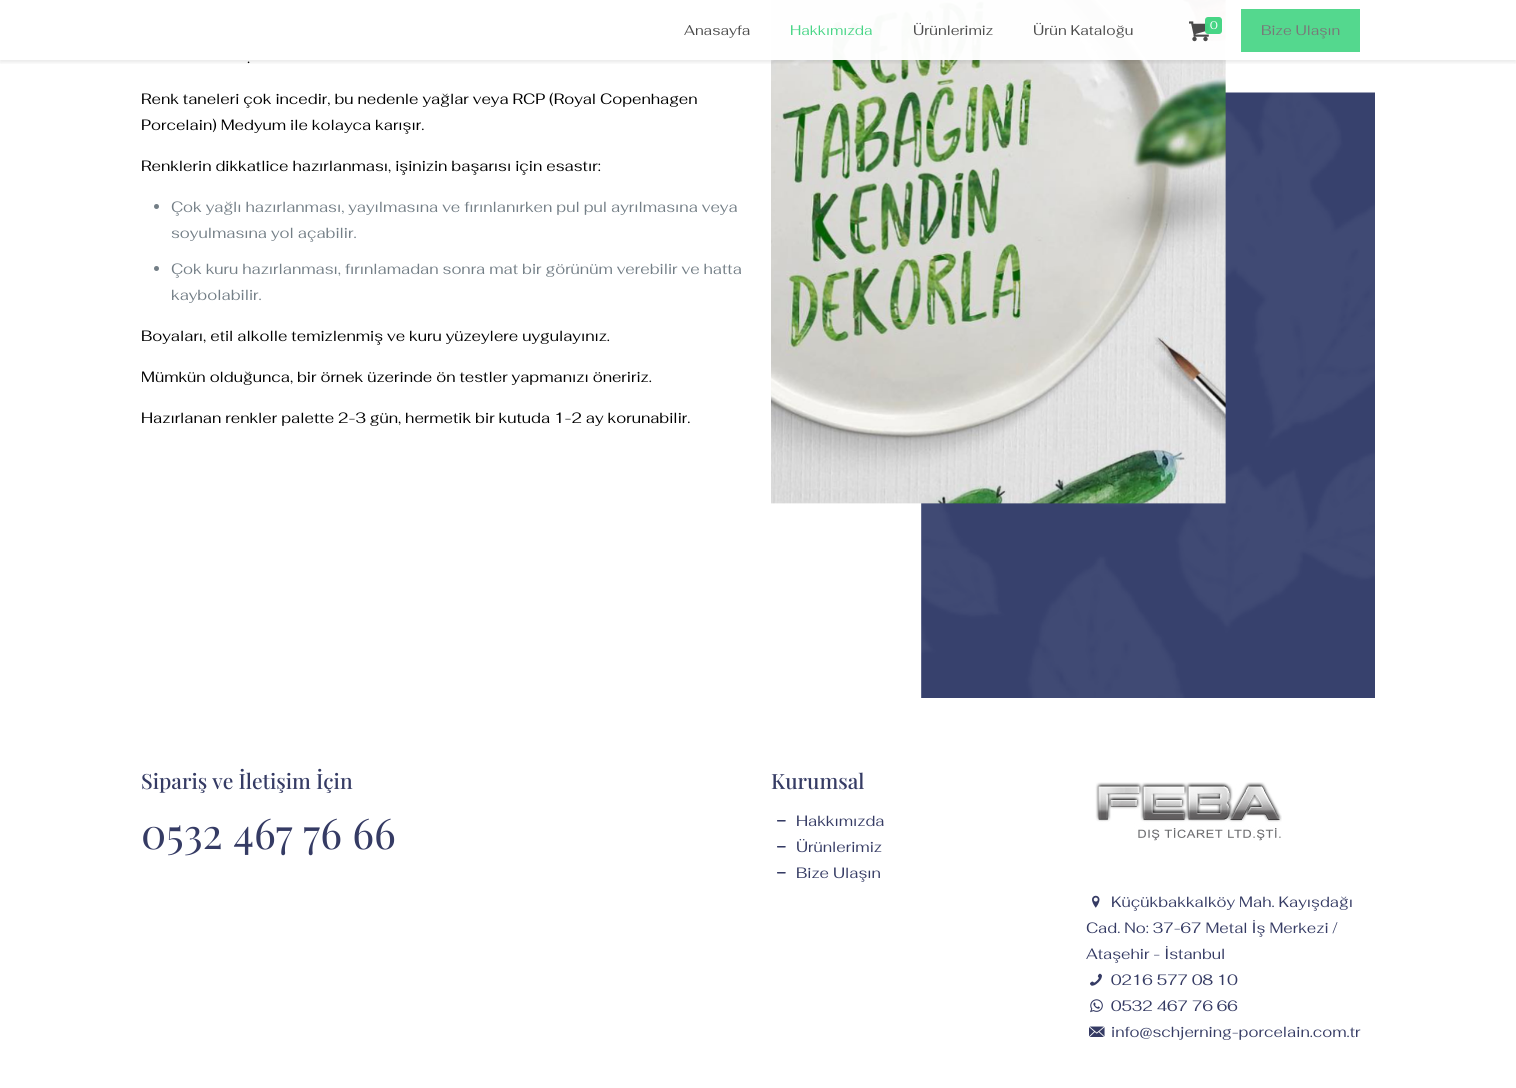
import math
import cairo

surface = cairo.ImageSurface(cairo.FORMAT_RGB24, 1516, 1088)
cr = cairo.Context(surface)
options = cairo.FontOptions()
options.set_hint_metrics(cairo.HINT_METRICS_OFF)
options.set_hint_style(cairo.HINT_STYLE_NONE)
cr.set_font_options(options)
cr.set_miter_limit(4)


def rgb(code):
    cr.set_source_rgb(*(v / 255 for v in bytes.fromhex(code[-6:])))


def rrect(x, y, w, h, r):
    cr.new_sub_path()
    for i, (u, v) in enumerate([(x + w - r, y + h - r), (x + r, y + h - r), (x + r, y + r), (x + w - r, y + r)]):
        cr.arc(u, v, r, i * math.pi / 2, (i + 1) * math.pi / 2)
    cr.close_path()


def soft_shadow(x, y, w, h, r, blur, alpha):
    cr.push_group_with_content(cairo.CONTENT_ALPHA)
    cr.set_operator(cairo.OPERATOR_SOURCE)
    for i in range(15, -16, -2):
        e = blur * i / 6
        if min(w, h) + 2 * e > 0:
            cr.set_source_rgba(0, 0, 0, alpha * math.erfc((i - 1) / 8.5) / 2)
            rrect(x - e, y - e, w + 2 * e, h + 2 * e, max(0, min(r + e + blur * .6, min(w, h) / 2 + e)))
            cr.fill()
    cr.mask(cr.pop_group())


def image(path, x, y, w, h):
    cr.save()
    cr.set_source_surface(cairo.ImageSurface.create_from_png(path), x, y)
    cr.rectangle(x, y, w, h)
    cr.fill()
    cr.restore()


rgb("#ffffff")
cr.paint()
image("img/2.png", 771, 0, 604, 698)
cr.save()
cr.rectangle(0, 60, 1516, 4)
cr.clip()
rgb("#000000")
soft_shadow(0, 2, 1516, 60, 0, 2.5, 0.1)
cr.restore()
cr.set_source_rgba(1, 1, 1, 0.97)
cr.rectangle(771, 0, 455, 60)
cr.fill()
image("img/1.png", 1189, 21, 20, 21)
cr.set_source_rgba(0.259, 0.831, 0.51, 0.97)
rrect(1205, 17, 17, 17, 3)
cr.fill()
rgb("#48d586")
cr.rectangle(1241, 9, 119, 43)
cr.fill()
cr.set_source_rgba(1, 1, 1, 0.07)
cr.rectangle(1241, 9, 119, 43)
cr.fill()
rgb("#737e86")
cr.arc(156.5, 206.5, 2.5, 0, 2 * math.pi)
cr.fill()
cr.arc(156.5, 268.5, 2.5, 0, 2 * math.pi)
cr.fill()
image("img/3.png", 777, 820, 9, 2)
image("img/3.png", 777, 846, 9, 2)
image("img/3.png", 777, 872, 9, 2)
image("img/4.png", 1095, 782, 187, 59)
image("img/5.png", 1092, 895, 8, 13)
image("img/6.png", 1090, 973, 12, 13)
image("img/7.png", 1090, 999, 13, 14)
image("img/8.png", 1089, 1026, 16, 11)
cr.select_font_face("Fahkwang")
cr.set_font_size(14)
rgb("#4a4a4a")
cr.move_to(684, 35)
cr.show_text("Anasayfa")
rgb("#48d586")
cr.move_to(790, 35)
cr.show_text("Hakkımızda")
rgb("#4a4a4a")
cr.move_to(913, 35)
cr.show_text("Ürünlerimiz")
cr.move_to(1033, 35)
cr.show_text("Ürün Kataloğu")
cr.set_font_size(11)
rgb("#f9fefb")
cr.move_to(1210, 29)
cr.show_text("0")
cr.set_font_size(14)
rgb("#787878")
cr.move_to(1261, 35)
cr.show_text("Bize Ulaşın")
cr.set_font_size(15)
rgb("#000000")
for x, y, s in [
    (247, 63, "."),
    (141, 104, "Renk taneleri çok incedir, bu nedenle yağlar veya RCP (Royal Copenhagen"),
    (141, 130, "Porcelain) Medyum ile kolayca karışır."),
    (141, 171, "Renklerin dikkatlice hazırlanması, işinizin başarısı için esastır:"),
]:
    cr.move_to(x, y)
    cr.show_text(s)
rgb("#737e86")
for x, y, s in [
    (171, 212, "Çok yağlı hazırlanması, yayılmasına ve fırınlanırken pul pul ayrılmasına veya"),
    (171, 238, "soyulmasına yol açabilir."),
    (171, 274, "Çok kuru hazırlanması, fırınlamadan sonra mat bir görünüm verebilir ve hatta"),
    (171, 300, "kaybolabilir."),
]:
    cr.move_to(x, y)
    cr.show_text(s)
rgb("#000000")
for x, y, s in [
    (141, 341, "Boyaları, etil alkolle temizlenmiş ve kuru yüzeylere uygulayınız."),
    (141, 382, "Mümkün olduğunca, bir örnek üzerinde ön testler yapmanızı öneririz."),
    (141, 423, "Hazırlanan renkler palette 2-3 gün, hermetik bir kutuda 1-2 ay korunabilir."),
]:
    cr.move_to(x, y)
    cr.show_text(s)
cr.select_font_face("Playfair Display Medium")
cr.set_font_size(21)
rgb("#353b64")
cr.move_to(141, 789)
cr.show_text("Sipariş ve İletişim İçin")
cr.select_font_face("Playfair Display")
cr.set_font_size(42)
cr.move_to(141, 849)
cr.show_text("0532 467 76 66")
cr.select_font_face("Playfair Display Medium")
cr.set_font_size(21)
cr.move_to(771, 789)
cr.show_text("Kurumsal")
cr.select_font_face("Fahkwang")
cr.set_font_size(15)
for x, y, s in [
    (796, 826, "Hakkımızda"),
    (796, 852, "Ürünlerimiz"),
    (796, 878, "Bize Ulaşın"),
    (1111, 907, "Küçükbakkalköy Mah. Kayışdağı"),
    (1086, 933, "Cad. No: 37-67 Metal İş Merkezi /"),
    (1086, 959, "Ataşehir - İstanbul"),
    (1111, 985, "0216 577 08 10"),
    (1111, 1011, "0532 467 76 66"),
    (1111, 1037, "info@schjerning-porcelain.com.tr"),
]:
    cr.move_to(x, y)
    cr.show_text(s)
surface.write_to_png("page.png")
